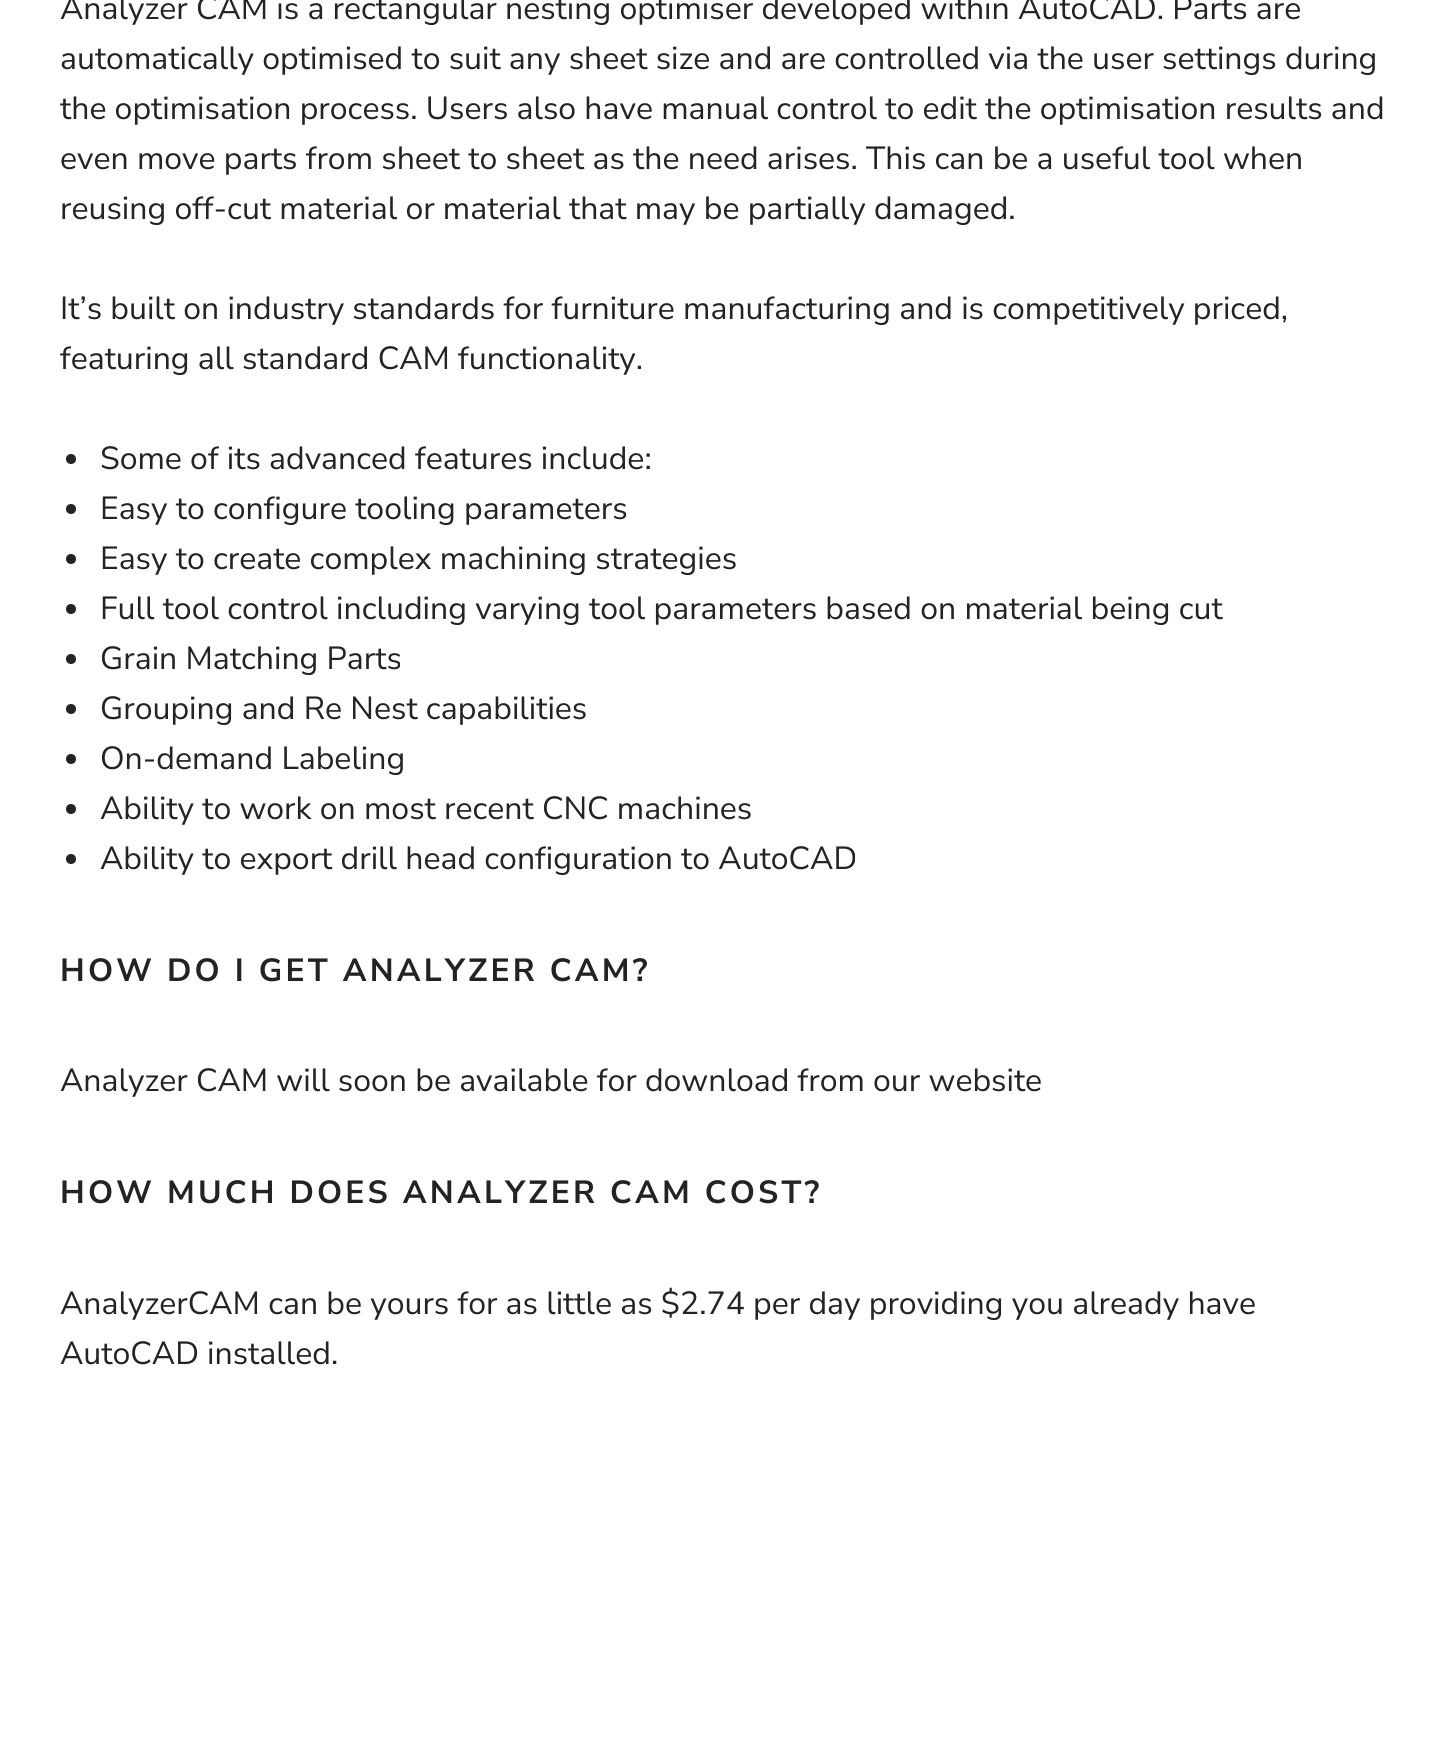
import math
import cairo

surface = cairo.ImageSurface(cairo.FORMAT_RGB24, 1447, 1742)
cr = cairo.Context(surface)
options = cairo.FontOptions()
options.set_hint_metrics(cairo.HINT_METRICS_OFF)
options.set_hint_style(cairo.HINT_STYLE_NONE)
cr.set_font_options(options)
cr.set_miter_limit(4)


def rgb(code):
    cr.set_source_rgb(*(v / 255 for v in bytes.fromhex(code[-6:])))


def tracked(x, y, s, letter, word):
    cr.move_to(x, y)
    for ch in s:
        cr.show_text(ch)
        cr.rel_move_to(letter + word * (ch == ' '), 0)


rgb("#ffffff")
cr.paint()
rgb("#222323")
cr.arc(71, 459, 5, 0, 2 * math.pi)
cr.fill()
cr.arc(71, 509, 5, 0, 2 * math.pi)
cr.fill()
cr.arc(71, 559, 5, 0, 2 * math.pi)
cr.fill()
cr.arc(71, 609, 5, 0, 2 * math.pi)
cr.fill()
cr.arc(71, 659, 5, 0, 2 * math.pi)
cr.fill()
cr.arc(71, 709, 5, 0, 2 * math.pi)
cr.fill()
cr.arc(71, 759, 5, 0, 2 * math.pi)
cr.fill()
cr.arc(71, 809, 5, 0, 2 * math.pi)
cr.fill()
cr.arc(71, 859, 5, 0, 2 * math.pi)
cr.fill()
cr.select_font_face("Nunito Sans")
cr.set_font_size(32)
for x, y, s in [
    (60, 19, "Analyzer CAM is a rectangular nesting optimiser developed within AutoCAD. Parts are"),
    (60, 69, "automatically optimised to suit any sheet size and are controlled via the user settings during"),
    (60, 119, "the optimisation process. Users also have manual control to edit the optimisation results and"),
    (60, 169, "even move parts from sheet to sheet as the need arises. This can be a useful tool when"),
    (60, 219, "reusing off-cut material or material that may be partially damaged."),
    (60, 319, "It’s built on industry standards for furniture manufacturing and is competitively priced,"),
    (60, 369, "featuring all standard CAM functionality."),
    (100, 469, "Some of its advanced features include:"),
    (100, 519, "Easy to configure tooling parameters"),
    (100, 569, "Easy to create complex machining strategies"),
    (100, 619, "Full tool control including varying tool parameters based on material being cut"),
    (100, 669, "Grain Matching Parts"),
    (100, 719, "Grouping and Re Nest capabilities"),
    (100, 769, "On-demand Labeling"),
    (100, 819, "Ability to work on most recent CNC machines"),
    (100, 869, "Ability to export drill head configuration to AutoCAD"),
]:
    cr.move_to(x, y)
    cr.show_text(s)
cr.select_font_face("Nunito Sans", cairo.FONT_SLANT_NORMAL, cairo.FONT_WEIGHT_BOLD)
tracked(60, 981, "HOW DO I GET ANALYZER CAM?", 3.2, 0)
cr.select_font_face("Nunito Sans")
cr.move_to(60, 1091)
cr.show_text("Analyzer CAM will soon be available for download from our website")
cr.select_font_face("Nunito Sans", cairo.FONT_SLANT_NORMAL, cairo.FONT_WEIGHT_BOLD)
tracked(60, 1203, "HOW MUCH DOES ANALYZER CAM COST?", 3.2, 0)
cr.select_font_face("Nunito Sans")
cr.move_to(60, 1314)
cr.show_text("AnalyzerCAM can be yours for as little as $2.74 per day providing you already have")
cr.move_to(60, 1364)
cr.show_text("AutoCAD installed.")
surface.write_to_png("page.png")
